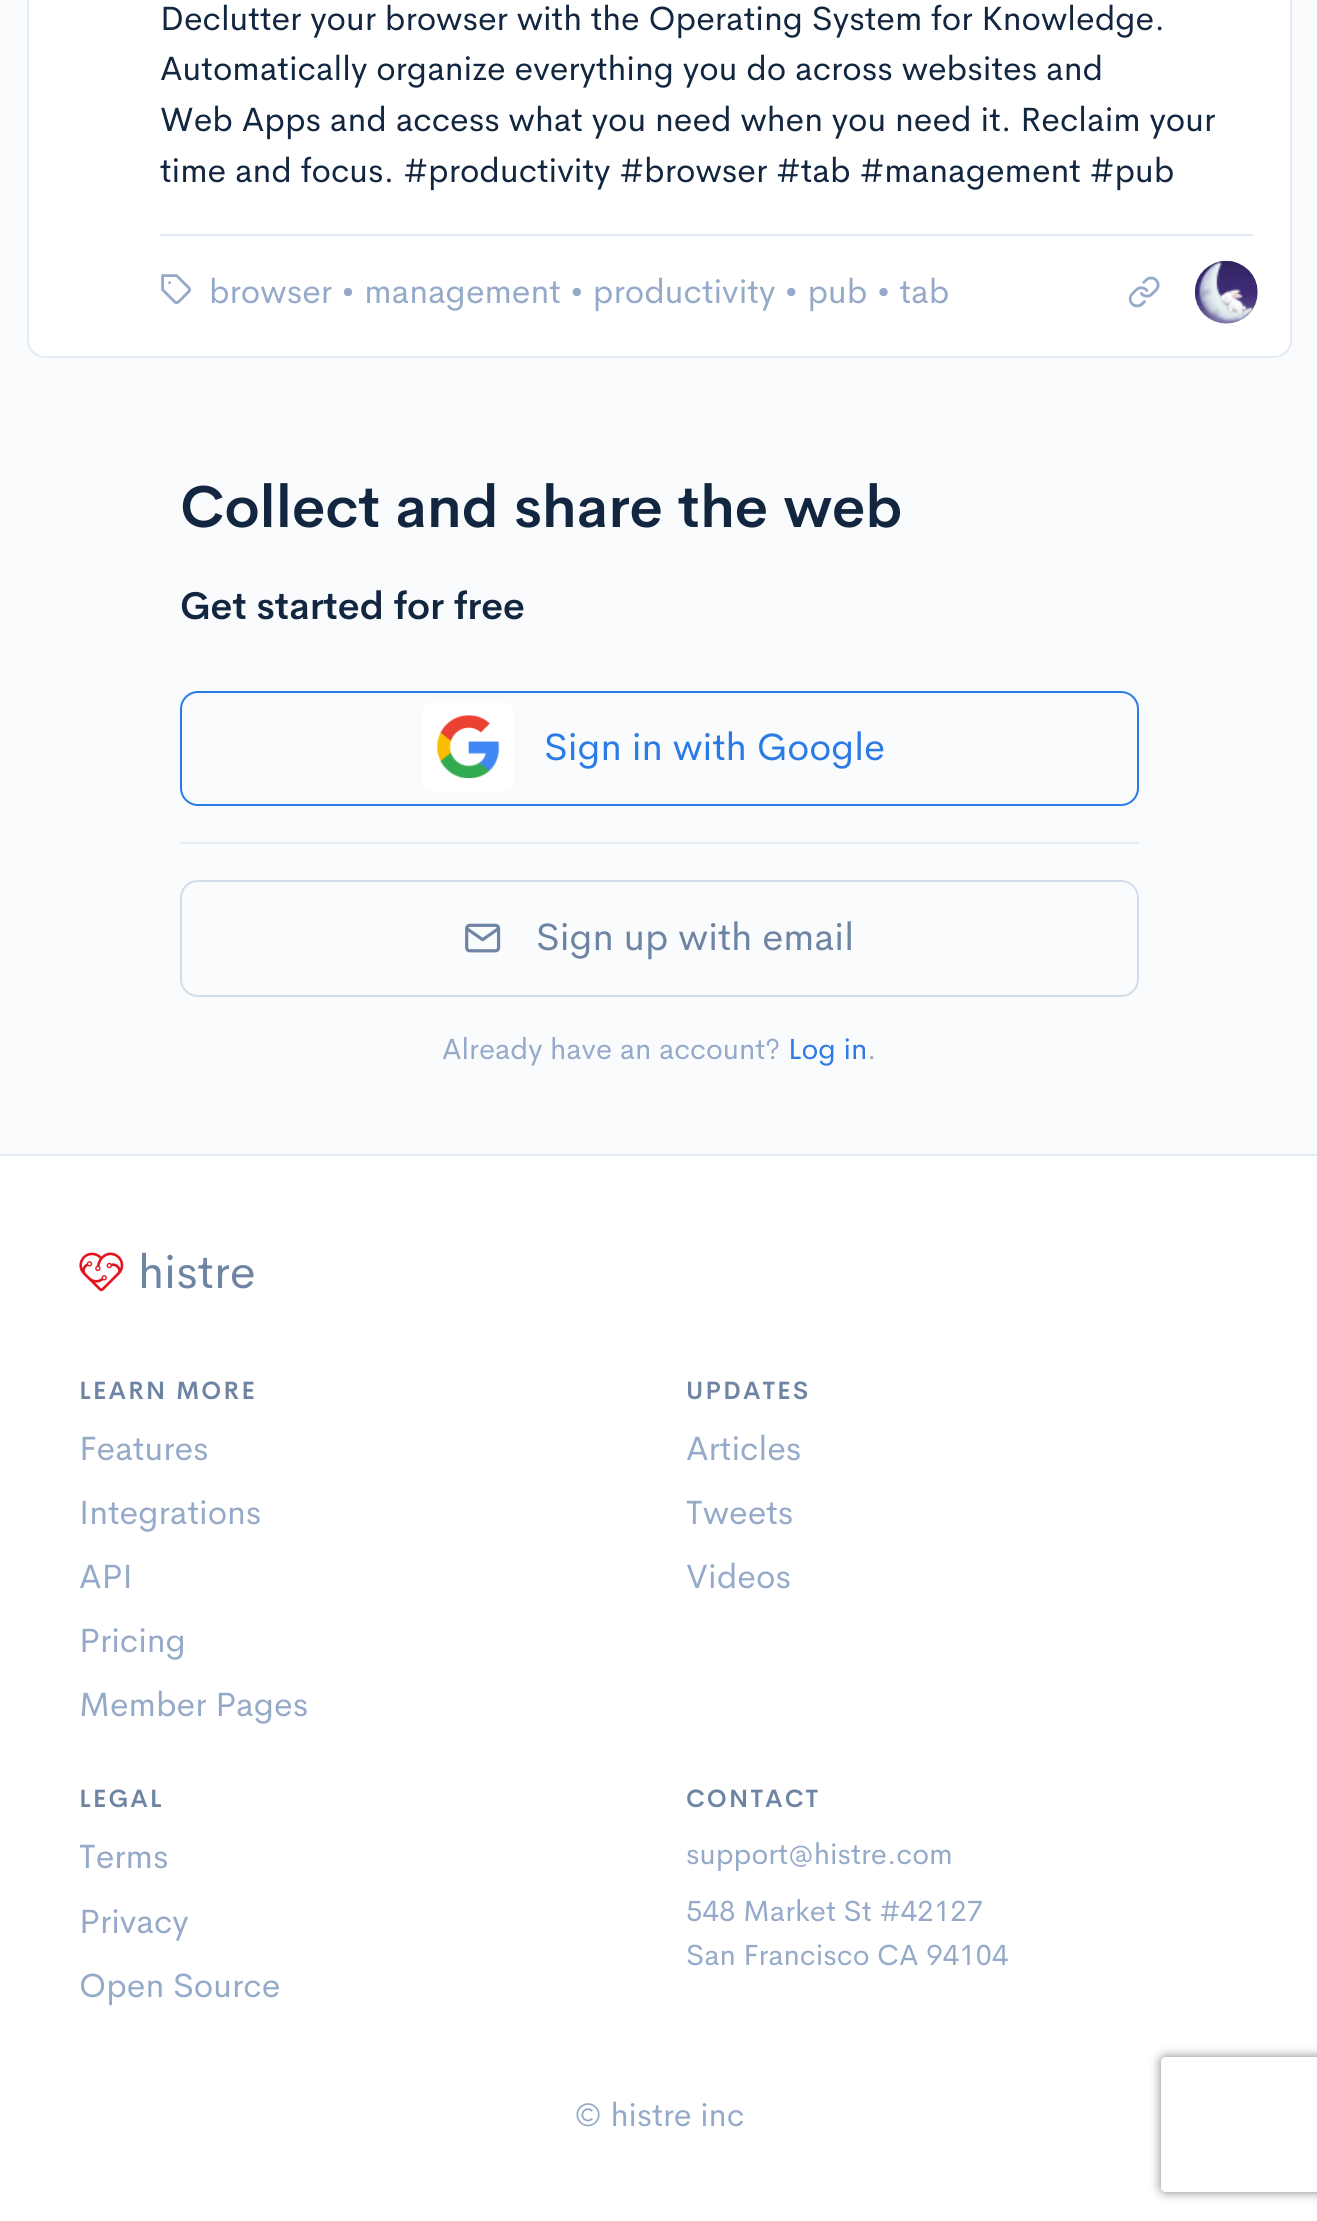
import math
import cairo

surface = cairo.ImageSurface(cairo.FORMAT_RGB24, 1317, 2221)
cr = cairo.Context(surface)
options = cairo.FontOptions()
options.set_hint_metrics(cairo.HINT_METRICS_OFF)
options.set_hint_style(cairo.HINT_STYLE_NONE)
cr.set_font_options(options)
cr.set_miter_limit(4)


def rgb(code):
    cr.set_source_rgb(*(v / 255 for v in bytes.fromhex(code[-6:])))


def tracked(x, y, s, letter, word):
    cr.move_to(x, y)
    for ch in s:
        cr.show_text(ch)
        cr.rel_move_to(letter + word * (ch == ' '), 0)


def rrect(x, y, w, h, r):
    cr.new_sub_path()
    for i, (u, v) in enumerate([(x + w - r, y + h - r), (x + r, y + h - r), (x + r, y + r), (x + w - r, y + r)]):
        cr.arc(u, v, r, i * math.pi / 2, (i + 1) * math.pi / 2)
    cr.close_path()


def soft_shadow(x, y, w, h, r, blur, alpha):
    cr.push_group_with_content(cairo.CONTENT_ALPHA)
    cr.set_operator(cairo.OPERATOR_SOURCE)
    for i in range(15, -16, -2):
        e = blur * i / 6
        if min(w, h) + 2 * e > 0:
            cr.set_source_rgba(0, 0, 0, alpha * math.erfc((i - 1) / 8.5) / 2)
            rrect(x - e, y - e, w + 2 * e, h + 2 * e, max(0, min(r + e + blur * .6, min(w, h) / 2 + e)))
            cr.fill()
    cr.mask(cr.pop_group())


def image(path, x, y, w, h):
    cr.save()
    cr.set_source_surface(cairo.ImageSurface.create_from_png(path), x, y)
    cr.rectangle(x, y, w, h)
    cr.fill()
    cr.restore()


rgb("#f9fbfd")
cr.paint()
rgb("#ffffff")
rrect(28, -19, 1263, 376, 17)
cr.fill_preserve()
rgb("#e3ebf6")
cr.stroke()
cr.rectangle(160, 234, 1093, 2)
cr.fill()
image("img/1.png", 161, 274, 30, 30)
image("img/2.png", 1128, 276, 32, 32)
image("img/3.png", 1194, 260, 64, 64)
rrect(181, 692, 957, 113, 17)
rgb("#2c7be5")
cr.stroke()
rgb("#ffffff")
rrect(423, 702, 90, 90, 9)
cr.fill()
image("img/4.png", 436, 715, 64, 64)
rgb("#e3ebf6")
cr.rectangle(180, 842, 959, 2)
cr.fill()
rrect(181, 881, 957, 115, 17)
rgb("#d2ddec")
cr.stroke()
image("img/5.png", 465, 923, 36, 30)
rgb("#ffffff")
cr.rectangle(0, 1156, 1317, 1065)
cr.fill()
rgb("#e3ebf6")
cr.rectangle(0, 1154, 1317, 2)
cr.fill()
image("img/6.png", 79, 1252, 45, 40)
cr.save()
cr.set_fill_rule(cairo.FILL_RULE_EVEN_ODD)
cr.new_path()
cr.move_to(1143, 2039)
cr.line_to(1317, 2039)
cr.line_to(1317, 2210)
cr.line_to(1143, 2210)
cr.close_path()
cr.move_to(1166, 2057)
cr.line_to(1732, 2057)
cr.curve_to(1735, 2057, 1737, 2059, 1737, 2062)
cr.line_to(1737, 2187)
cr.curve_to(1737, 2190, 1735, 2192, 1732, 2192)
cr.line_to(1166, 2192)
cr.curve_to(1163, 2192, 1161, 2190, 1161, 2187)
cr.line_to(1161, 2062)
cr.curve_to(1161, 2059, 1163, 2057, 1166, 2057)
cr.close_path()
cr.clip()
rgb("#808080")
soft_shadow(1161, 2057, 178, 135, 5, 5.5, 1)
cr.restore()
cr.select_font_face("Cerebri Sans")
cr.set_font_size(33.75)
rgb("#12263f")
for x, y, s in [
    (160, 30, "Declutter your browser with the Operating System for Knowledge."),
    (160, 80, "Automatically organize everything you do across websites and"),
    (160, 131, "Web Apps and access what you need when you need it. Reclaim your"),
    (160, 182, "time and focus. #productivity #browser #tab #management #pub"),
]:
    cr.move_to(x, y)
    cr.show_text(s)
rgb("#95aac9")
cr.move_to(209, 303)
cr.show_text("browser • management • productivity • pub • tab")
cr.select_font_face("Cerebri Sans SemiBold")
cr.set_font_size(58.5)
rgb("#12263f")
cr.move_to(180, 527)
cr.show_text("Collect and share the web")
cr.set_font_size(38.25)
cr.move_to(180, 619)
cr.show_text("Get started for free")
cr.select_font_face("Cerebri Sans")
rgb("#2c7be5")
cr.move_to(544, 760)
cr.show_text("Sign in with Google")
rgb("#6e84a3")
cr.move_to(536, 950)
cr.show_text("Sign up with email")
cr.set_font_size(29.25)
rgb("#95aac9")
cr.move_to(442, 1059)
cr.show_text("Already have an account?")
rgb("#2c7be5")
cr.move_to(788, 1059)
cr.show_text("Log in")
rgb("#95aac9")
cr.move_to(867, 1059)
cr.show_text(".")
cr.set_font_size(47)
rgb("#6e84a3")
cr.move_to(138, 1288)
cr.show_text("histre")
cr.select_font_face("Cerebri Sans SemiBold")
cr.set_font_size(24.75)
tracked(79, 1399, "LEARN MORE", 2, 0)
cr.select_font_face("Cerebri Sans")
cr.set_font_size(33.75)
rgb("#95aac9")
for x, y, s in [
    (79, 1460, "Features"),
    (79, 1524, "Integrations"),
    (79, 1588, "API"),
    (79, 1652, "Pricing"),
    (79, 1716, "Member Pages"),
]:
    cr.move_to(x, y)
    cr.show_text(s)
cr.select_font_face("Cerebri Sans SemiBold")
cr.set_font_size(24.75)
rgb("#6e84a3")
tracked(686, 1399, "UPDATES", 2, 0)
cr.select_font_face("Cerebri Sans")
cr.set_font_size(33.75)
rgb("#95aac9")
for x, y, s in [
    (686, 1460, "Articles"),
    (686, 1524, "Tweets"),
    (686, 1588, "Videos"),
]:
    cr.move_to(x, y)
    cr.show_text(s)
cr.select_font_face("Cerebri Sans SemiBold")
cr.set_font_size(24.75)
rgb("#6e84a3")
tracked(79, 1807, "LEGAL", 2, 0)
cr.select_font_face("Cerebri Sans")
cr.set_font_size(33.75)
rgb("#95aac9")
for x, y, s in [
    (79, 1868, "Terms"),
    (79, 1933, "Privacy"),
    (79, 1997, "Open Source"),
]:
    cr.move_to(x, y)
    cr.show_text(s)
cr.select_font_face("Cerebri Sans SemiBold")
cr.set_font_size(24.75)
rgb("#6e84a3")
tracked(686, 1807, "CONTACT", 2, 0)
cr.select_font_face("Cerebri Sans")
cr.set_font_size(29.25)
rgb("#95aac9")
for x, y, s in [
    (686, 1864, "support@histre.com"),
    (686, 1921, "548 Market St #42127"),
    (686, 1965, "San Francisco CA 94104"),
]:
    cr.move_to(x, y)
    cr.show_text(s)
cr.set_font_size(32.5)
cr.move_to(574, 2126)
cr.show_text("© histre inc")
surface.write_to_png("page.png")
